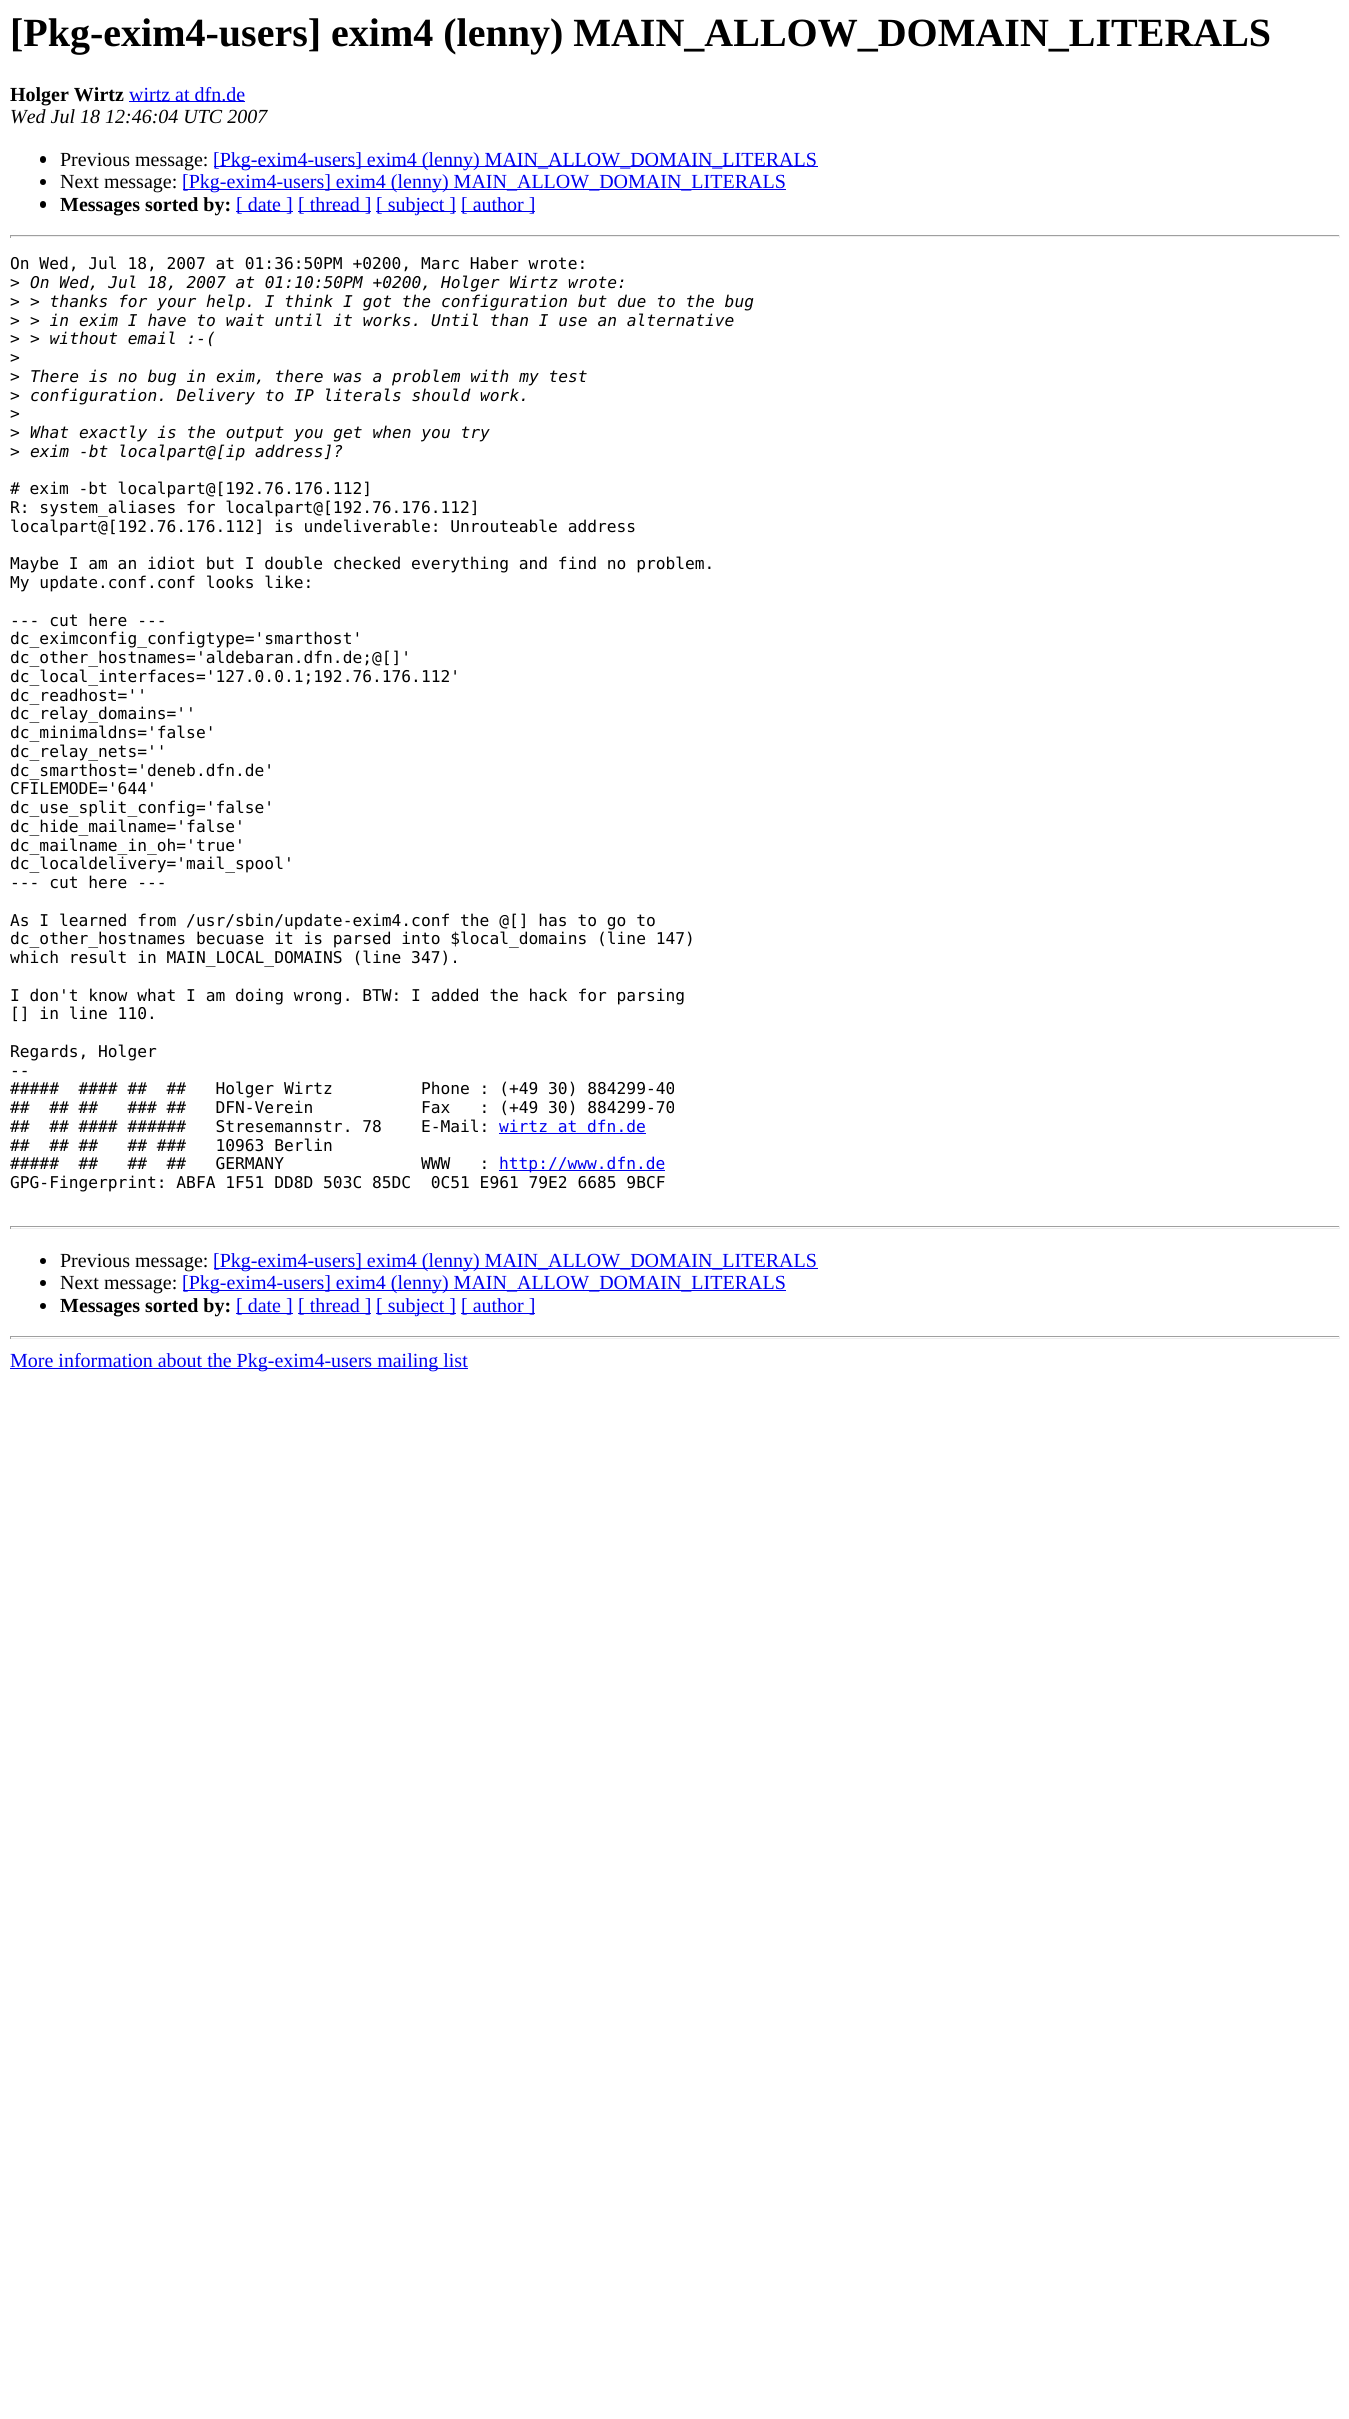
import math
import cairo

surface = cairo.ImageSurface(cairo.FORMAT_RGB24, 1349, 2419)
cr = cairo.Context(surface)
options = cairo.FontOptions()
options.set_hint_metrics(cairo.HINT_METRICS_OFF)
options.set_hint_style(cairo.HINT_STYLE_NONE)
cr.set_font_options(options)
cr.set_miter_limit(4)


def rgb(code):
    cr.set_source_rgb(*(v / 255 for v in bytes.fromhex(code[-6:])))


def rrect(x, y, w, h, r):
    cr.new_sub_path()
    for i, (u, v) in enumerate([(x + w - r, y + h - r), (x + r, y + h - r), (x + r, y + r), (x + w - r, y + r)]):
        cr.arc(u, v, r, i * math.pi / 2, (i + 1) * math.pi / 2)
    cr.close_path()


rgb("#ffffff")
cr.paint()
rgb("#0000ee")
cr.rectangle(129, 101, 116, 1)
cr.fill()
rgb("#000000")
rrect(40, 156, 6, 7, 3)
cr.fill()
rgb("#0000ee")
cr.rectangle(214, 166, 604, 1)
cr.fill()
rgb("#000000")
cr.arc(43, 182, 3, 0, 2 * math.pi)
cr.fill()
rgb("#0000ee")
cr.rectangle(183, 189, 603, 1)
cr.fill()
rgb("#000000")
rrect(40, 201, 6, 7, 3)
cr.fill()
for x, y, w, h, color in [
    (236, 211, 57, 1, "#0000ee"),
    (298, 211, 73, 1, "#0000ee"),
    (376, 211, 80, 1, "#0000ee"),
    (461, 211, 74, 1, "#0000ee"),
    (10, 235, 1330, 1, "#9f9f9f"),
    (1339, 235, 1, 3, "#eeeeee"),
    (10, 236, 1330, 1, "#eeeeee"),
    (10, 235, 1, 3, "#9f9f9f"),
    (499, 1133, 147, 1, "#0000ee"),
    (499, 1170, 166, 1, "#0000ee"),
    (10, 1226, 1330, 1, "#9f9f9f"),
    (1339, 1226, 1, 3, "#eeeeee"),
    (10, 1228, 1330, 1, "#eeeeee"),
    (10, 1226, 1, 3, "#9f9f9f"),
]:
    rgb(color)
    cr.rectangle(x, y, w, h)
    cr.fill()
rgb("#000000")
cr.arc(43, 1261, 3, 0, 2 * math.pi)
cr.fill()
rgb("#0000ee")
cr.rectangle(214, 1268, 604, 1)
cr.fill()
rgb("#000000")
cr.arc(43, 1283, 3, 0, 2 * math.pi)
cr.fill()
rgb("#0000ee")
cr.rectangle(183, 1290, 603, 1)
cr.fill()
rgb("#000000")
cr.arc(43, 1306, 3, 0, 2 * math.pi)
cr.fill()
for x, y, w, h, color in [
    (236, 1313, 57, 1, "#0000ee"),
    (298, 1313, 73, 1, "#0000ee"),
    (376, 1313, 80, 1, "#0000ee"),
    (461, 1313, 74, 1, "#0000ee"),
    (10, 1336, 1330, 1, "#9f9f9f"),
    (1339, 1336, 1, 3, "#eeeeee"),
    (10, 1338, 1330, 1, "#eeeeee"),
    (10, 1336, 1, 3, "#9f9f9f"),
    (10, 1368, 458, 1, "#0000ee"),
]:
    rgb(color)
    cr.rectangle(x, y, w, h)
    cr.fill()
cr.select_font_face("Liberation Serif", cairo.FONT_SLANT_NORMAL, cairo.FONT_WEIGHT_BOLD)
cr.set_font_size(40)
rgb("#000000")
cr.move_to(10, 46)
cr.show_text("[Pkg-exim4-users] exim4 (lenny) MAIN_ALLOW_DOMAIN_LITERALS")
cr.set_font_size(20)
cr.move_to(10, 101)
cr.show_text("Holger Wirtz")
cr.select_font_face("Liberation Serif")
rgb("#0000ee")
cr.move_to(129, 101)
cr.show_text("wirtz at dfn.de")
cr.select_font_face("Liberation Serif", cairo.FONT_SLANT_ITALIC)
rgb("#000000")
cr.move_to(10, 123)
cr.show_text("Wed Jul 18 12:46:04 UTC 2007")
cr.select_font_face("Liberation Serif")
cr.move_to(60, 166)
cr.show_text("Previous message:")
rgb("#0000ee")
cr.move_to(213, 166)
cr.show_text("[Pkg-exim4-users] exim4 (lenny) MAIN_ALLOW_DOMAIN_LITERALS")
rgb("#000000")
cr.move_to(60, 188)
cr.show_text("Next message:")
rgb("#0000ee")
cr.move_to(182, 188)
cr.show_text("[Pkg-exim4-users] exim4 (lenny) MAIN_ALLOW_DOMAIN_LITERALS")
cr.select_font_face("Liberation Serif", cairo.FONT_SLANT_NORMAL, cairo.FONT_WEIGHT_BOLD)
rgb("#000000")
cr.move_to(60, 211)
cr.show_text("Messages sorted by:")
cr.select_font_face("Liberation Serif")
rgb("#0000ee")
for x, y, s in [
    (236, 211, "[ date ]"),
    (298, 211, "[ thread ]"),
    (376, 211, "[ subject ]"),
    (461, 211, "[ author ]"),
]:
    cr.move_to(x, y)
    cr.show_text(s)
cr.select_font_face("DejaVu Sans Mono")
cr.set_font_size(16.25)
rgb("#000000")
cr.move_to(10, 269)
cr.show_text("On Wed, Jul 18, 2007 at 01:36:50PM +0200, Marc Haber wrote:")
cr.move_to(10, 288)
cr.show_text(">")
cr.select_font_face("DejaVu Sans Mono", cairo.FONT_SLANT_ITALIC)
cr.move_to(30, 288)
cr.show_text("On Wed, Jul 18, 2007 at 01:10:50PM +0200, Holger Wirtz wrote:")
cr.select_font_face("DejaVu Sans Mono")
cr.move_to(10, 307)
cr.show_text(">")
cr.select_font_face("DejaVu Sans Mono", cairo.FONT_SLANT_ITALIC)
cr.move_to(30, 307)
cr.show_text("> thanks for your help. I think I got the configuration but due to the bug")
cr.select_font_face("DejaVu Sans Mono")
cr.move_to(10, 326)
cr.show_text(">")
cr.select_font_face("DejaVu Sans Mono", cairo.FONT_SLANT_ITALIC)
cr.move_to(30, 326)
cr.show_text("> in exim I have to wait until it works. Until than I use an alternative")
cr.select_font_face("DejaVu Sans Mono")
cr.move_to(10, 344)
cr.show_text(">")
cr.select_font_face("DejaVu Sans Mono", cairo.FONT_SLANT_ITALIC)
cr.move_to(30, 344)
cr.show_text("> without email :-(")
cr.select_font_face("DejaVu Sans Mono")
cr.move_to(10, 363)
cr.show_text(">")
cr.move_to(10, 382)
cr.show_text(">")
cr.select_font_face("DejaVu Sans Mono", cairo.FONT_SLANT_ITALIC)
cr.move_to(30, 382)
cr.show_text("There is no bug in exim, there was a problem with my test")
cr.select_font_face("DejaVu Sans Mono")
cr.move_to(10, 401)
cr.show_text(">")
cr.select_font_face("DejaVu Sans Mono", cairo.FONT_SLANT_ITALIC)
cr.move_to(30, 401)
cr.show_text("configuration. Delivery to IP literals should work.")
cr.select_font_face("DejaVu Sans Mono")
cr.move_to(10, 419)
cr.show_text(">")
cr.move_to(10, 438)
cr.show_text(">")
cr.select_font_face("DejaVu Sans Mono", cairo.FONT_SLANT_ITALIC)
cr.move_to(30, 438)
cr.show_text("What exactly is the output you get when you try")
cr.select_font_face("DejaVu Sans Mono")
cr.move_to(10, 457)
cr.show_text(">")
cr.select_font_face("DejaVu Sans Mono", cairo.FONT_SLANT_ITALIC)
cr.move_to(30, 457)
cr.show_text("exim -bt localpart@[ip address]?")
cr.select_font_face("DejaVu Sans Mono")
for x, y, s in [
    (10, 494, "# exim -bt localpart@[192.76.176.112]"),
    (10, 513, "R: system_aliases for localpart@[192.76.176.112]"),
    (10, 532, "localpart@[192.76.176.112] is undeliverable: Unrouteable address"),
    (10, 569, "Maybe I am an idiot but I double checked everything and find no problem."),
    (10, 588, "My update.conf.conf looks like:"),
    (10, 626, "--- cut here ---"),
    (10, 644, "dc_eximconfig_configtype='smarthost'"),
    (10, 663, "dc_other_hostnames='aldebaran.dfn.de;@[]'"),
    (10, 682, "dc_local_interfaces='127.0.0.1;192.76.176.112'"),
    (10, 701, "dc_readhost=''"),
    (10, 719, "dc_relay_domains=''"),
    (10, 738, "dc_minimaldns='false'"),
    (10, 757, "dc_relay_nets=''"),
    (10, 776, "dc_smarthost='deneb.dfn.de'"),
    (10, 794, "CFILEMODE='644'"),
    (10, 813, "dc_use_split_config='false'"),
    (10, 832, "dc_hide_mailname='false'"),
    (10, 851, "dc_mailname_in_oh='true'"),
    (10, 869, "dc_localdelivery='mail_spool'"),
    (10, 888, "--- cut here ---"),
    (10, 926, "As I learned from /usr/sbin/update-exim4.conf the @[] has to go to"),
    (10, 944, "dc_other_hostnames becuase it is parsed into $local_domains (line 147)"),
    (10, 963, "which result in MAIN_LOCAL_DOMAINS (line 347)."),
    (10, 1001, "I don't know what I am doing wrong. BTW: I added the hack for parsing"),
    (10, 1019, "[] in line 110."),
    (10, 1057, "Regards, Holger"),
    (10, 1076, "--"),
    (10, 1094, "#####  #### ##  ##   Holger Wirtz         Phone : (+49 30) 884299-40"),
    (10, 1113, "##  ## ##   ### ##   DFN-Verein           Fax   : (+49 30) 884299-70"),
    (10, 1132, "##  ## #### ######   Stresemannstr. 78    E-Mail:"),
]:
    cr.move_to(x, y)
    cr.show_text(s)
rgb("#0000ee")
cr.move_to(499, 1132)
cr.show_text("wirtz at dfn.de")
rgb("#000000")
cr.move_to(10, 1151)
cr.show_text("##  ## ##   ## ###   10963 Berlin")
cr.move_to(10, 1169)
cr.show_text("#####  ##   ##  ##   GERMANY              WWW   :")
rgb("#0000ee")
cr.move_to(499, 1169)
cr.show_text("http://www.dfn.de")
rgb("#000000")
cr.move_to(10, 1188)
cr.show_text("GPG-Fingerprint: ABFA 1F51 DD8D 503C 85DC  0C51 E961 79E2 6685 9BCF")
cr.select_font_face("Liberation Serif")
cr.set_font_size(20)
cr.move_to(60, 1267)
cr.show_text("Previous message:")
rgb("#0000ee")
cr.move_to(213, 1267)
cr.show_text("[Pkg-exim4-users] exim4 (lenny) MAIN_ALLOW_DOMAIN_LITERALS")
rgb("#000000")
cr.move_to(60, 1289)
cr.show_text("Next message:")
rgb("#0000ee")
cr.move_to(182, 1289)
cr.show_text("[Pkg-exim4-users] exim4 (lenny) MAIN_ALLOW_DOMAIN_LITERALS")
cr.select_font_face("Liberation Serif", cairo.FONT_SLANT_NORMAL, cairo.FONT_WEIGHT_BOLD)
rgb("#000000")
cr.move_to(60, 1312)
cr.show_text("Messages sorted by:")
cr.select_font_face("Liberation Serif")
rgb("#0000ee")
for x, y, s in [
    (236, 1312, "[ date ]"),
    (298, 1312, "[ thread ]"),
    (376, 1312, "[ subject ]"),
    (461, 1312, "[ author ]"),
    (10, 1367, "More information about the Pkg-exim4-users mailing list"),
]:
    cr.move_to(x, y)
    cr.show_text(s)
surface.write_to_png("page.png")
